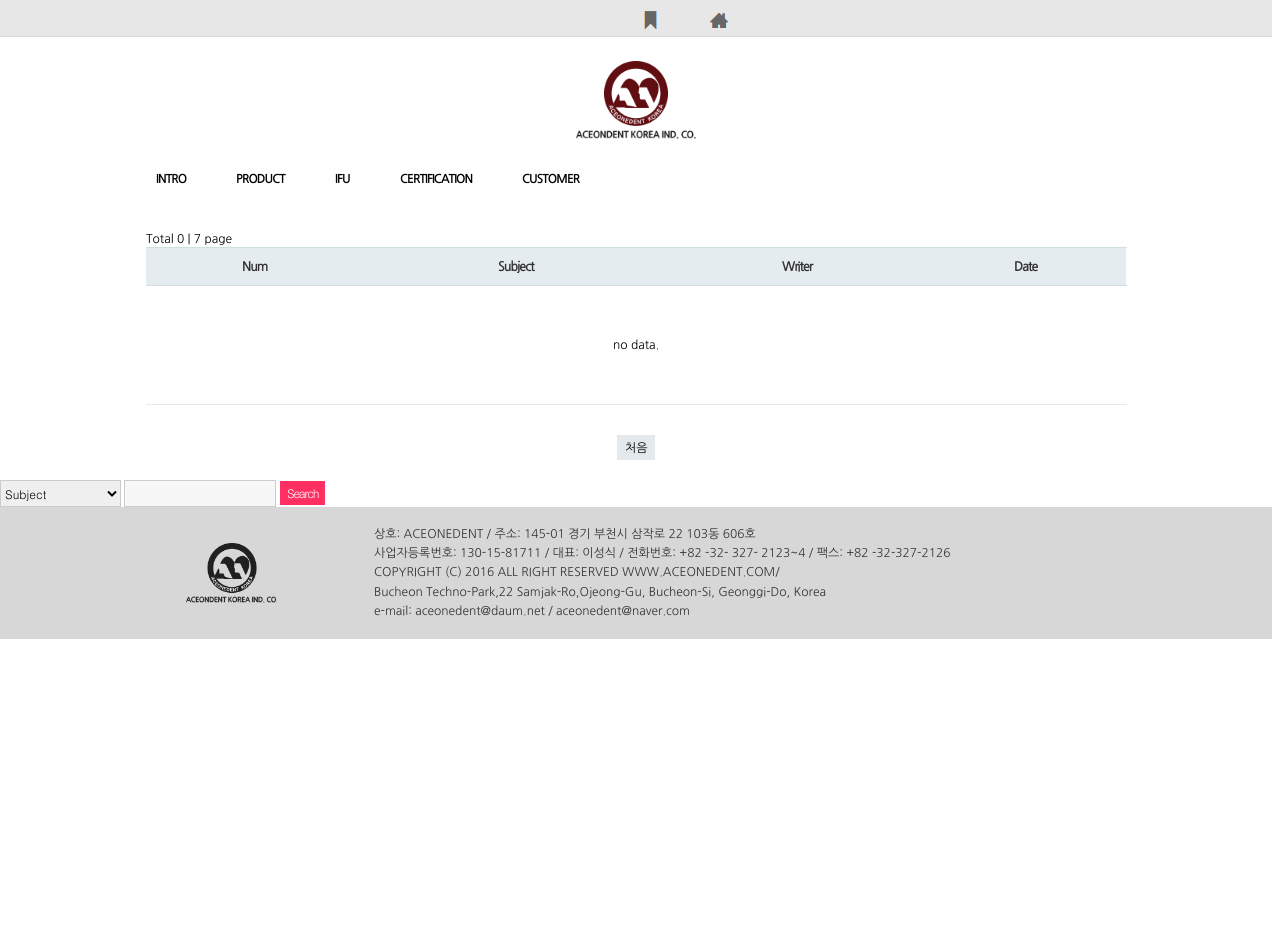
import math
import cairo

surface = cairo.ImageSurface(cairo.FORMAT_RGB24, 1272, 942)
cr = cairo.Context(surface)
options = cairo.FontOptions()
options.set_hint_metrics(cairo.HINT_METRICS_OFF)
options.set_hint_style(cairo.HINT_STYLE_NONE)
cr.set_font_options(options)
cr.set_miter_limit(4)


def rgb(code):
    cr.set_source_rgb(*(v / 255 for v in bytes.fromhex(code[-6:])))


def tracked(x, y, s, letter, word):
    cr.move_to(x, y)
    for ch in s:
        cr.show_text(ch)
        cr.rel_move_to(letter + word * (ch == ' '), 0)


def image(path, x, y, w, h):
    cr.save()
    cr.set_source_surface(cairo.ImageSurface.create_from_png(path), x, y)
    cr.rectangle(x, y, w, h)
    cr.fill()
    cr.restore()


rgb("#ffffff")
cr.paint()
rgb("#e7e7e7")
cr.rectangle(0, 0, 1272, 36)
cr.fill()
rgb("#d9d9d9")
cr.rectangle(0, 36, 1272, 1)
cr.fill()
image("img/1.png", 643, 11, 14, 18)
image("img/2.png", 710, 12, 19, 16)
image("img/3.png", 576, 61, 120, 78)
for x, y, w, h, color in [
    (146, 248, 980, 37, "#e5ecef"),
    (146, 247, 981, 1, "#d1dee2"),
    (146, 285, 981, 1, "#d1dee2"),
    (146, 404, 981, 1, "#e9e9e9"),
    (617, 435, 38, 25, "#e4eaec"),
]:
    rgb(color)
    cr.rectangle(x, y, w, h)
    cr.fill()
rgb("#efefef")
cr.rectangle(0.5, 480.5, 120, 26)
cr.fill_preserve()
rgb("#cccccc")
cr.set_line_width(1)
cr.stroke()
cr.new_path()
cr.move_to(108, 491.5)
cr.line_to(112, 495.5)
cr.line_to(116, 491.5)
rgb("#000000")
cr.set_line_width(2)
cr.stroke()
rgb("#f7f7f7")
cr.rectangle(124.5, 480.5, 151, 26)
cr.fill_preserve()
rgb("#cccccc")
cr.set_line_width(1)
cr.stroke()
rgb("#ff3061")
cr.rectangle(280, 481, 45, 24)
cr.fill()
rgb("#d7d7d7")
cr.rectangle(0, 507, 1272, 132)
cr.fill()
image("img/4.png", 186, 543, 91, 60)
cr.select_font_face("NanumGothic", cairo.FONT_SLANT_NORMAL, cairo.FONT_WEIGHT_BOLD)
cr.set_font_size(12)
rgb("#000000")
for x, y, s in [
    (156, 183, "INTRO"),
    (236, 183, "PRODUCT"),
    (335, 183, "IFU"),
    (400, 183, "CERTIFICATION"),
    (522, 183, "CUSTOMER"),
]:
    tracked(x, y, s, -1, 0)
cr.select_font_face("NanumGothic")
cr.move_to(146, 243)
cr.show_text("Total 0 | 7 page")
cr.select_font_face("NanumGothic", cairo.FONT_SLANT_NORMAL, cairo.FONT_WEIGHT_BOLD)
cr.set_font_size(13)
rgb("#333333")
for x, y, s in [
    (242, 271, "Num"),
    (498, 271, "Subject"),
    (782, 271, "Writer"),
    (1014, 271, "Date"),
]:
    tracked(x, y, s, -1.25, 0)
cr.select_font_face("NanumGothic")
cr.set_font_size(12)
rgb("#000000")
cr.move_to(613, 349)
cr.show_text("no data.")
cr.move_to(625, 452)
cr.show_text("처음")
cr.select_font_face("Dotum")
cr.move_to(5, 499)
cr.show_text("Subject")
rgb("#ffffff")
tracked(287, 498, "Search", -1.25, 0)
cr.select_font_face("NanumGothic")
rgb("#333333")
for x, y, s in [
    (374, 538, "상호: ACEONEDENT / 주소: 145-01 경기 부천시 삼작로 22 103동 606호"),
    (374, 557, "사업자등록번호: 130-15-81711 / 대표: 이성식 / 전화번호: +82 -32- 327- 2123~4 / 팩스: +82 -32-327-2126"),
    (374, 576, "COPYRIGHT (C) 2016 ALL RIGHT RESERVED WWW.ACEONEDENT.COM/"),
    (374, 596, "Bucheon Techno-Park,22 Samjak-Ro,Ojeong-Gu, Bucheon-Si, Geonggi-Do, Korea"),
    (374, 615, "e-mail: aceonedent@daum.net / aceonedent@naver.com"),
]:
    cr.move_to(x, y)
    cr.show_text(s)
surface.write_to_png("page.png")
